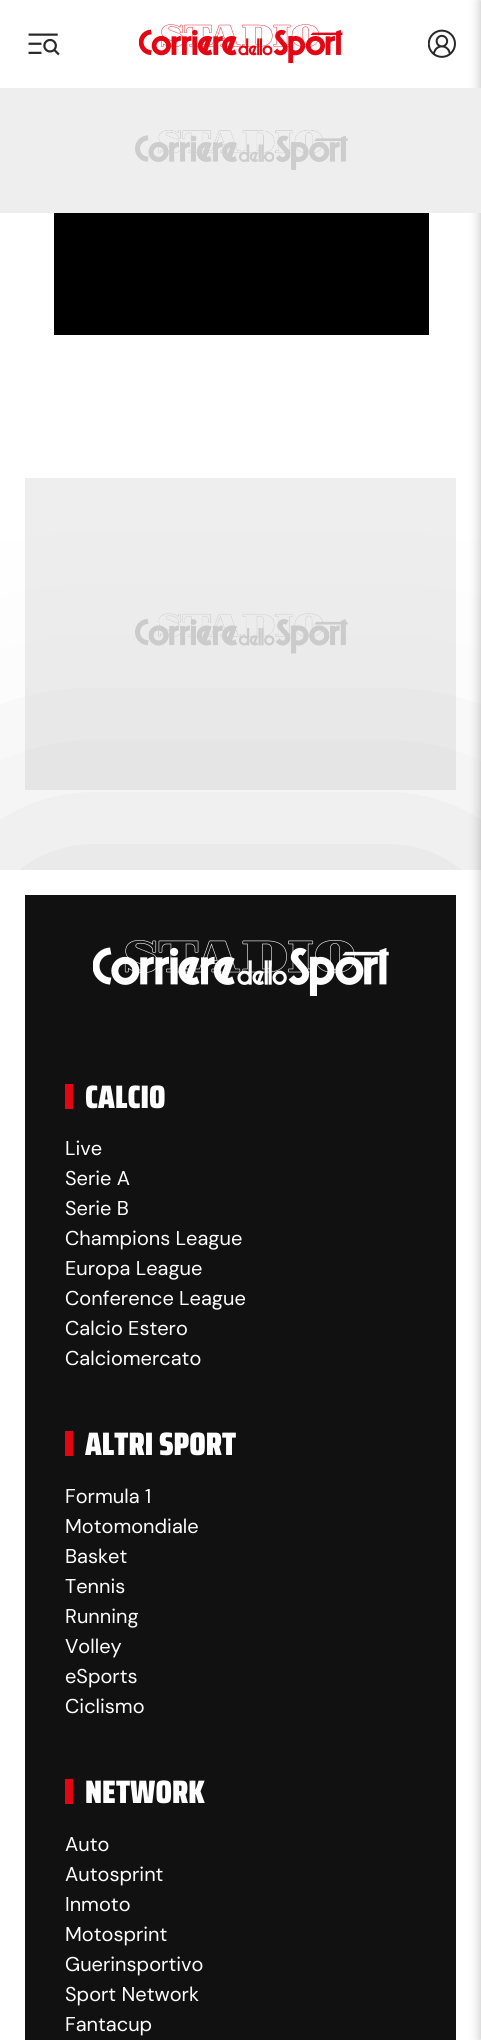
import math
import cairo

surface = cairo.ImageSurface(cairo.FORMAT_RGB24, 481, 2040)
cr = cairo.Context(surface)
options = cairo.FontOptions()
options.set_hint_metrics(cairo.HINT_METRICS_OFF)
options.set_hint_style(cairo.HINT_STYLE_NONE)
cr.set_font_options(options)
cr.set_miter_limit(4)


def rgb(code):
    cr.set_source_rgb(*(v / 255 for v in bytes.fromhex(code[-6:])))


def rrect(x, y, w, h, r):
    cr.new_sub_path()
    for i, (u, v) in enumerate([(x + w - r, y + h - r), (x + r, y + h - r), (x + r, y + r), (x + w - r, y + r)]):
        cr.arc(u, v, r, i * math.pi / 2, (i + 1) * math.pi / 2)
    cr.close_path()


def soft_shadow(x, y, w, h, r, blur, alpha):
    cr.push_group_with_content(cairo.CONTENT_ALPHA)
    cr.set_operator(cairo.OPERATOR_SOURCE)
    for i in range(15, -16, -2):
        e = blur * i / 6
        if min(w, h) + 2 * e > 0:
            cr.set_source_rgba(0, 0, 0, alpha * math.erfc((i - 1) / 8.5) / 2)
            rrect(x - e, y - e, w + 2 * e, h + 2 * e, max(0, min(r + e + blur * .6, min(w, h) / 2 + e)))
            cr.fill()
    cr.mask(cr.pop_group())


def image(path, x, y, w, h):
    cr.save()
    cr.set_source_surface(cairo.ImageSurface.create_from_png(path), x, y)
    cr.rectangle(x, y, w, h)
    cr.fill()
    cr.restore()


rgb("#ffffff")
cr.paint()
image("img/1.png", 28, 33, 32, 23)
image("img/2.png", 139, 24, 204, 40)
image("img/3.png", 428, 29, 28, 29)
rgb("#eeeeee")
cr.rectangle(25, 478, 431, 312)
cr.fill()
image("img/5.png", 135, 613, 213, 41)
rgb("#282828")
soft_shadow(0, 870, 481, 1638, 0, 156, 0.2)
rgb("#ffffff")
cr.rectangle(0, 870, 481, 1170)
cr.fill()
rgb("#000000")
soft_shadow(479, 0, 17, 2040, 0, 5, 0.2)
rgb("#eeeeee")
cr.rectangle(0, 88, 481, 125)
cr.fill()
image("img/4.png", 135, 130, 213, 40)
rgb("#000000")
cr.rectangle(54, 213, 375, 122)
cr.fill()
rgb("#111111")
cr.rectangle(25, 895, 431, 1145)
cr.fill()
image("img/6.png", 93, 940, 296, 56)
for x, y, w, h, color in [
    (65, 1084, 8, 25, "#e30613"),
    (65, 1431, 8, 25, "#e30613"),
    (65, 1779, 8, 25, "#e30613"),
]:
    rgb(color)
    cr.rectangle(x, y, w, h)
    cr.fill()
cr.select_font_face("Saira Condensed Black")
cr.set_font_size(32.5)
rgb("#ffffff")
cr.move_to(85, 1108)
cr.show_text("CALCIO")
cr.select_font_face("DM Sans")
cr.set_font_size(20)
for x, y, s in [
    (65, 1155, "Live"),
    (65, 1185, "Serie A"),
    (65, 1215, "Serie B"),
    (65, 1245, "Champions League"),
    (65, 1275, "Europa League"),
    (65, 1305, "Conference League"),
    (65, 1335, "Calcio Estero"),
    (65, 1365, "Calciomercato"),
]:
    cr.move_to(x, y)
    cr.show_text(s)
cr.select_font_face("Saira Condensed Black")
cr.set_font_size(32.5)
cr.move_to(85, 1455)
cr.show_text("ALTRI SPORT")
cr.select_font_face("DM Sans")
cr.set_font_size(20)
for x, y, s in [
    (65, 1503, "Formula 1"),
    (65, 1533, "Motomondiale"),
    (65, 1563, "Basket"),
    (65, 1593, "Tennis"),
    (65, 1623, "Running"),
    (65, 1653, "Volley"),
    (65, 1683, "eSports"),
    (65, 1713, "Ciclismo"),
]:
    cr.move_to(x, y)
    cr.show_text(s)
cr.select_font_face("Saira Condensed Black")
cr.set_font_size(32.5)
cr.move_to(85, 1803)
cr.show_text("NETWORK")
cr.select_font_face("DM Sans")
cr.set_font_size(20)
for x, y, s in [
    (65, 1851, "Auto"),
    (65, 1881, "Autosprint"),
    (65, 1911, "Inmoto"),
    (65, 1941, "Motosprint"),
    (65, 1971, "Guerinsportivo"),
    (65, 2001, "Sport Network"),
    (65, 2031, "Fantacup"),
]:
    cr.move_to(x, y)
    cr.show_text(s)
surface.write_to_png("page.png")
